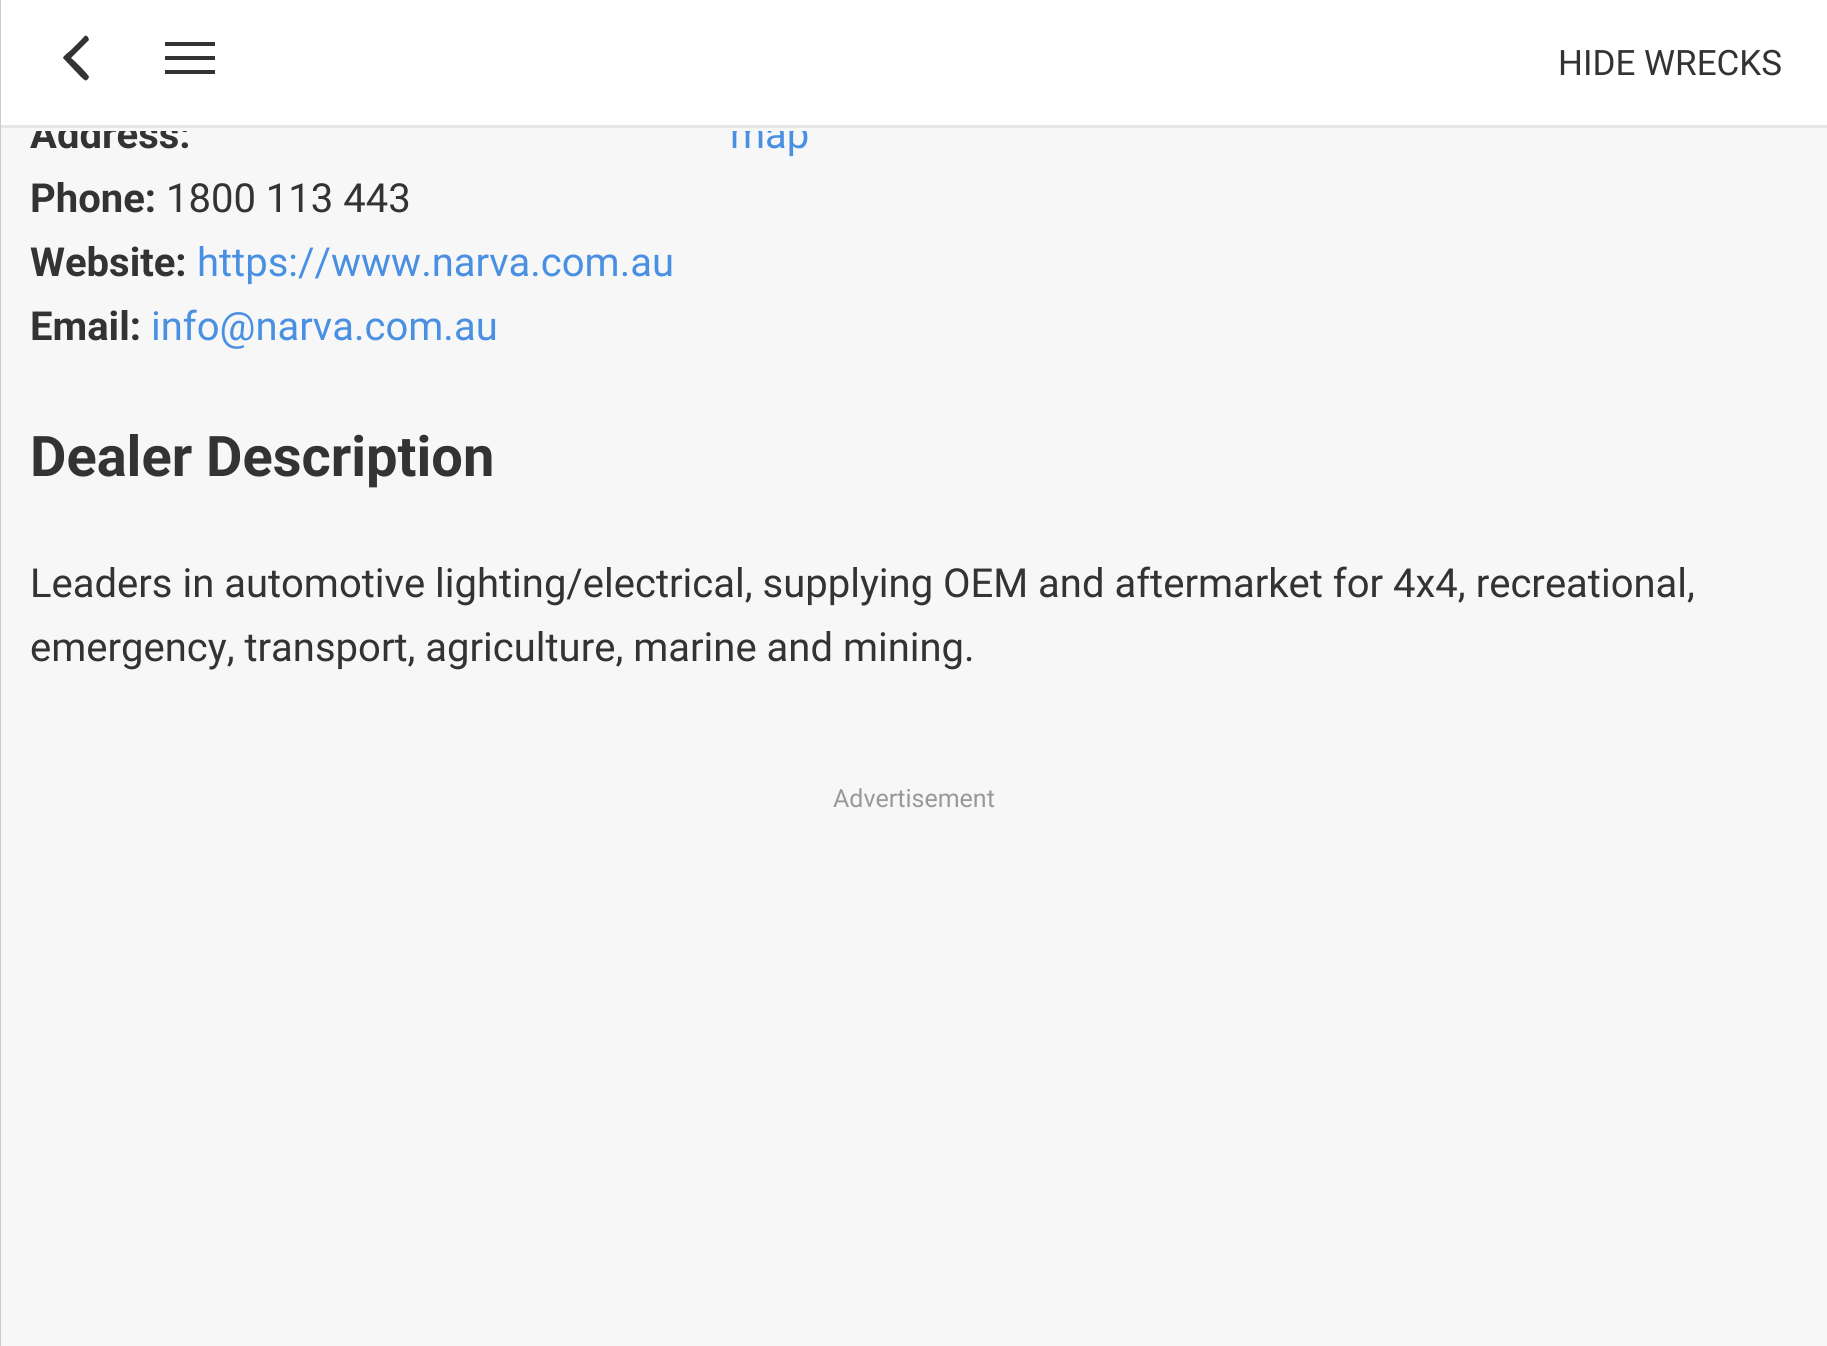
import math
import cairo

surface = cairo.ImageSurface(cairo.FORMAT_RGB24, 1827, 1346)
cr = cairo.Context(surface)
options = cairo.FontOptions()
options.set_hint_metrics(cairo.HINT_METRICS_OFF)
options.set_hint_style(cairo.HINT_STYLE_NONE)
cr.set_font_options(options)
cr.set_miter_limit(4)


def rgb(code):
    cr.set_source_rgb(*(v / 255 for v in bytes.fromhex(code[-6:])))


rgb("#f7f7f7")
cr.paint()
cr.select_font_face("Roboto", cairo.FONT_SLANT_NORMAL, cairo.FONT_WEIGHT_BOLD)
cr.set_font_size(40)
rgb("#333333")
cr.move_to(30, 148)
cr.show_text("Address:")
rgb("#ffffff")
cr.rectangle(1, 0, 1826, 125)
cr.fill()
cr.select_font_face("Roboto")
cr.set_font_size(35)
rgb("#333333")
cr.move_to(1558, 75)
cr.show_text("HIDE WRECKS")
cr.new_path()
cr.move_to(165, 42)
cr.line_to(215, 42)
cr.line_to(215, 46)
cr.line_to(165, 46)
cr.close_path()
cr.move_to(165, 56)
cr.line_to(215, 56)
cr.line_to(215, 60)
cr.line_to(165, 60)
cr.close_path()
cr.move_to(165, 70)
cr.line_to(215, 70)
cr.line_to(215, 74)
cr.line_to(165, 74)
cr.close_path()
cr.fill()
cr.new_path()
cr.move_to(71, 58)
cr.line_to(89, 40)
cr.line_to(88, 37)
cr.curve_to(85, 34, 85, 36, 81, 40)
cr.line_to(71, 50)
cr.curve_to(70, 51, 63, 56, 63, 58)
cr.line_to(81, 77)
cr.curve_to(85, 80, 85, 82, 88, 79)
cr.line_to(89, 77)
cr.curve_to(89, 75, 74, 60, 71, 58)
cr.close_path()
cr.fill()
cr.set_font_size(40)
rgb("#4990e2")
cr.move_to(730, 148)
cr.show_text("map")
for x, y, w, h, color in [
    (0, 125, 1827, 3, "#e6e6e6"),
    (0, 0, 1, 1346, "#cccccc"),
    (36, 128, 770, 3, "#f7f7f7"),
]:
    rgb(color)
    cr.rectangle(x, y, w, h)
    cr.fill()
cr.select_font_face("Roboto", cairo.FONT_SLANT_NORMAL, cairo.FONT_WEIGHT_BOLD)
rgb("#333333")
cr.move_to(30, 212)
cr.show_text("Phone:")
cr.select_font_face("Roboto")
cr.move_to(166, 212)
cr.show_text("1800 113 443")
cr.select_font_face("Roboto", cairo.FONT_SLANT_NORMAL, cairo.FONT_WEIGHT_BOLD)
cr.move_to(30, 276)
cr.show_text("Website:")
cr.select_font_face("Roboto")
rgb("#4990e2")
cr.move_to(197, 276)
cr.show_text("https://www.narva.com.au")
cr.select_font_face("Roboto", cairo.FONT_SLANT_NORMAL, cairo.FONT_WEIGHT_BOLD)
rgb("#333333")
cr.move_to(30, 340)
cr.show_text("Email:")
cr.select_font_face("Roboto")
rgb("#4990e2")
cr.move_to(151, 340)
cr.show_text("info@narva.com.au")
cr.select_font_face("Roboto", cairo.FONT_SLANT_NORMAL, cairo.FONT_WEIGHT_BOLD)
cr.set_font_size(56)
rgb("#333333")
cr.move_to(30, 476)
cr.show_text("Dealer Description")
cr.select_font_face("Roboto")
cr.set_font_size(40)
cr.move_to(30, 597)
cr.show_text("Leaders in automotive lighting/electrical, supplying OEM and aftermarket for 4x4, recreational,")
cr.move_to(30, 661)
cr.show_text("emergency, transport, agriculture, marine and mining.")
cr.set_font_size(25)
rgb("#999999")
cr.move_to(833, 807)
cr.show_text("Advertisement")
surface.write_to_png("page.png")
